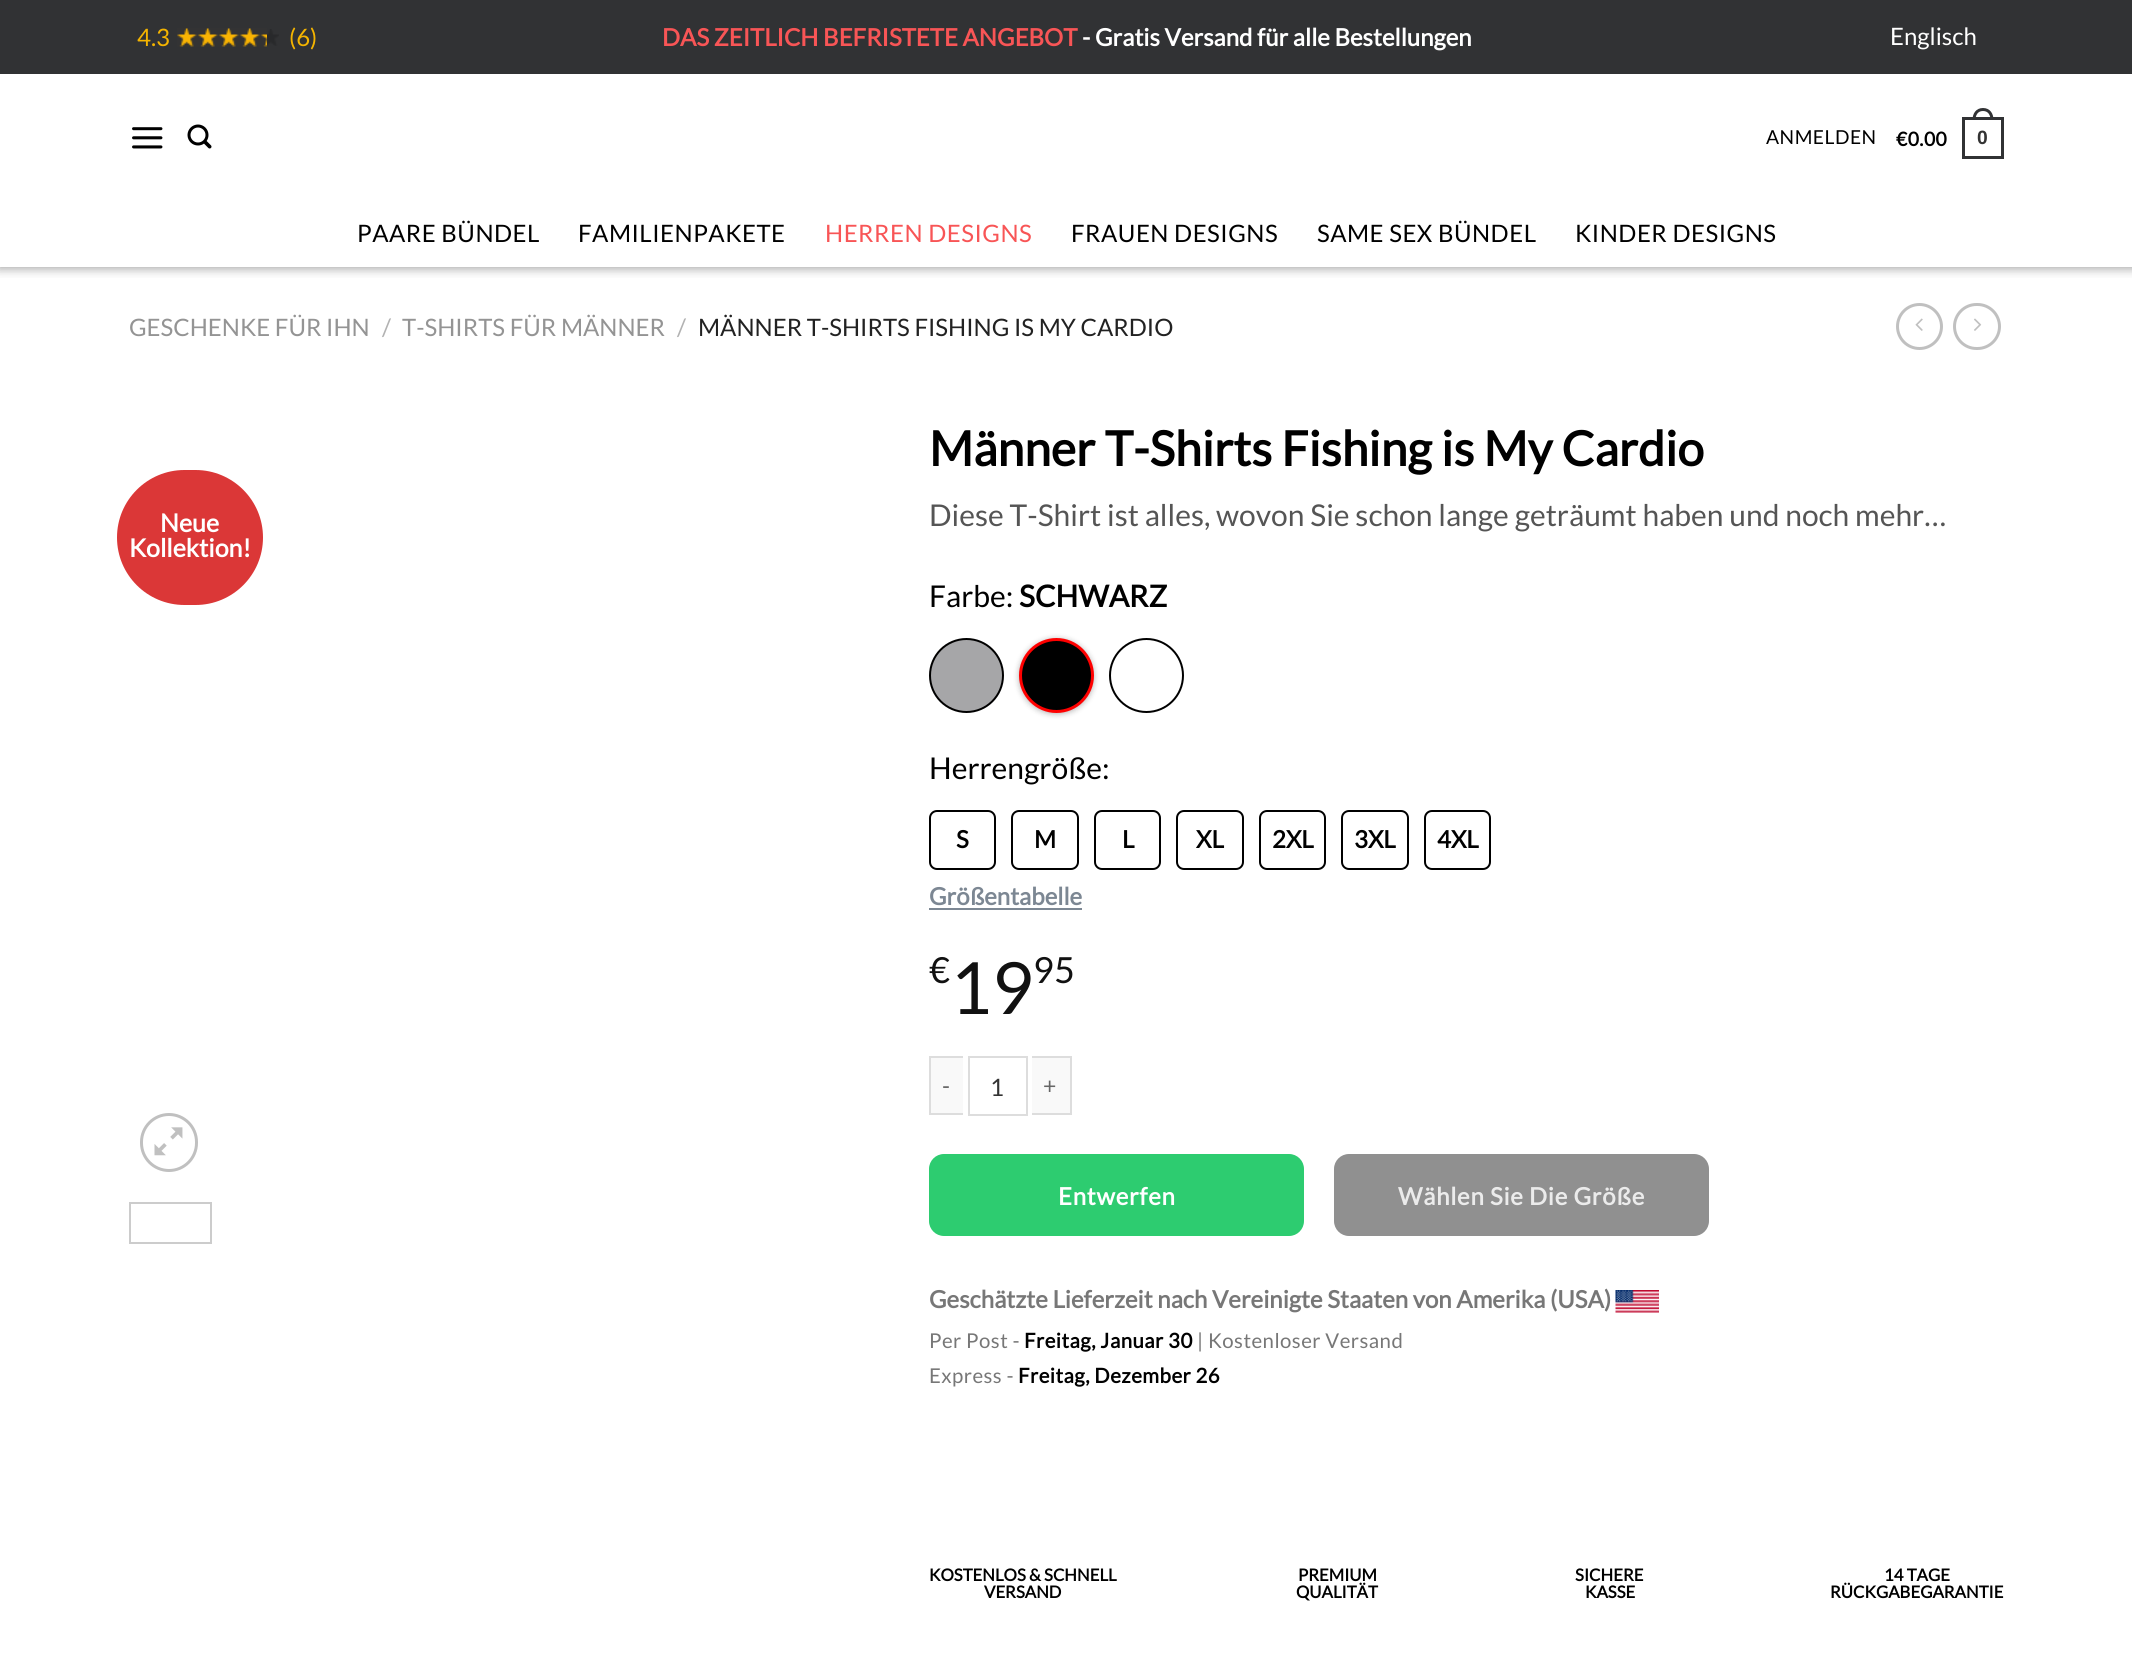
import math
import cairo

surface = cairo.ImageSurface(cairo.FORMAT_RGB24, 2132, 1656)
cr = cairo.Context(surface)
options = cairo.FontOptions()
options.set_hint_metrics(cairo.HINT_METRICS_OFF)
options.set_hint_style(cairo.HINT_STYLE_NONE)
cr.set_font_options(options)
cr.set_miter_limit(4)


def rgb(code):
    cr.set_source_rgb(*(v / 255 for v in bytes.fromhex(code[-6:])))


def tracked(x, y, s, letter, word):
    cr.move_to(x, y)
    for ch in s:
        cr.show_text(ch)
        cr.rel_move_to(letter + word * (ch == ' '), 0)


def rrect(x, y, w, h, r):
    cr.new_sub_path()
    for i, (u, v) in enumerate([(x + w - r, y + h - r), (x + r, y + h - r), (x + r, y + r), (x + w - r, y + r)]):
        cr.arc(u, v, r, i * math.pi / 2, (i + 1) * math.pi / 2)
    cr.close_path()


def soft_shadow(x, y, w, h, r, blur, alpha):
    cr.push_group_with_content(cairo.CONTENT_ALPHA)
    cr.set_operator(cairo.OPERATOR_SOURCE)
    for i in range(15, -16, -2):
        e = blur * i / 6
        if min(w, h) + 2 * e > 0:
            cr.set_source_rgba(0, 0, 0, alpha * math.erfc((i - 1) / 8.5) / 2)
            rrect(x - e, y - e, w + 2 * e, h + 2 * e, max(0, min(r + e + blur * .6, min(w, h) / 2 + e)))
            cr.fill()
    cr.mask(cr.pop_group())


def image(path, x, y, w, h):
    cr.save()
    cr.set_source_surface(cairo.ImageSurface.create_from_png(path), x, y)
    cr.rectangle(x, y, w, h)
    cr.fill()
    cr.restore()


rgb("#ffffff")
cr.paint()
cr.save()
cr.rectangle(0, 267, 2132, 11)
cr.clip()
rgb("#505050")
soft_shadow(-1, -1, 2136, 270, 0, 5, 0.5)
cr.restore()
rgb("#313234")
cr.rectangle(0, 0, 2132, 74)
cr.fill()
image("img/1.png", 178, 29, 101, 17)
image("img/2.png", 177, 28, 90, 19)
image("img/3.png", 132, 127, 31, 22)
image("img/4.png", 187, 124, 25, 25)
cr.rectangle(1963.5, 118.5, 39, 39)
cr.set_line_width(3)
cr.stroke()
cr.set_fill_rule(cairo.FILL_RULE_EVEN_ODD)
cr.new_path()
cr.move_to(1983, 108)
cr.curve_to(1990, 108, 1993.5, 113.5, 1993.5, 120)
cr.line_to(1972.5, 120)
cr.curve_to(1972.5, 113.5, 1976, 108, 1983, 108)
cr.close_path()
cr.move_to(1983, 111)
cr.curve_to(1988.5, 111, 1990.5, 115.5, 1990.5, 120)
cr.line_to(1975.5, 120)
cr.curve_to(1975.5, 115.5, 1977.5, 111, 1983, 111)
cr.close_path()
cr.fill()
cr.arc(1919.5, 326.5, 22, 0, 2 * math.pi)
rgb("#c0c0c0")
cr.stroke()
image("img/5.png", 1915, 318, 8, 13)
rrect(1954.5, 304.5, 45, 44, 22)
cr.stroke()
image("img/6.png", 1974, 318, 8, 13)
rgb("#db3737")
rrect(117, 470, 146, 135, 67.5)
cr.fill()
rrect(141.5, 1114.5, 55, 56, 27.5)
rgb("#c0c0c0")
cr.stroke()
image("img/7.png", 154, 1127, 29, 29)
cr.rectangle(130, 1203, 81, 40)
rgb("#cccccc")
cr.set_line_width(2)
cr.stroke()
rgb("#a6a6a8")
cr.arc(966.5, 675.5, 36.5, 0, 2 * math.pi)
cr.fill_preserve()
rgb("#000000")
cr.stroke()
rgb("#000000")
soft_shadow(1019, 639, 75, 75, 37.5, 3, 0.3)
rgb("#000000")
cr.arc(1056.5, 675.5, 36, 0, 2 * math.pi)
cr.fill_preserve()
rgb("#ff0000")
cr.set_line_width(3)
cr.stroke()
cr.arc(1146.5, 675.5, 36.5, 0, 2 * math.pi)
rgb("#000000")
cr.set_line_width(2)
cr.stroke()
rrect(930, 811, 65, 58, 7)
cr.stroke()
rrect(1012, 811, 66, 58, 7)
cr.stroke()
rrect(1095, 811, 65, 58, 7)
cr.stroke()
rrect(1177, 811, 66, 58, 7)
cr.stroke()
rrect(1260, 811, 65, 58, 7)
cr.stroke()
rrect(1342, 811, 66, 58, 7)
cr.stroke()
rrect(1425, 811, 65, 58, 7)
cr.stroke()
for x, y, w, h, color in [
    (929, 908, 153, 2, "#7c8793"),
    (931, 1058, 32, 55, "#f9f9f9"),
    (929, 1056, 34, 2, "#dddddd"),
    (929, 1113, 34, 2, "#dddddd"),
    (929, 1056, 2, 59, "#dddddd"),
]:
    rgb(color)
    cr.rectangle(x, y, w, h)
    cr.fill()
cr.rectangle(969, 1057, 58, 58)
cr.stroke()
for x, y, w, h, color in [
    (1032, 1058, 38, 55, "#f9f9f9"),
    (1032, 1056, 39, 2, "#dddddd"),
    (1070, 1056, 2, 59, "#dddddd"),
    (1032, 1113, 39, 2, "#dddddd"),
]:
    rgb(color)
    cr.rectangle(x, y, w, h)
    cr.fill()
rgb("#2dcc70")
rrect(929, 1154, 375, 82, 15)
cr.fill()
rgb("#909090")
rrect(1334, 1154, 375, 82, 15)
cr.fill()
image("img/8.png", 1615, 1290, 44, 23)
cr.select_font_face("Lato")
cr.set_font_size(24)
rgb("#f4b400")
cr.move_to(137, 46)
cr.show_text("4.3")
cr.move_to(289, 46)
cr.show_text("(6)")
cr.select_font_face("Lato", cairo.FONT_SLANT_NORMAL, cairo.FONT_WEIGHT_BOLD)
rgb("#f85556")
cr.move_to(662, 46)
cr.show_text("DAS ZEITLICH BEFRISTETE ANGEBOT")
rgb("#ffffff")
cr.move_to(1082, 46)
cr.show_text("- Gratis Versand für alle Bestellungen")
cr.select_font_face("Lato")
cr.move_to(1890, 45)
cr.show_text("Englisch")
cr.set_font_size(19.25)
rgb("#000000")
tracked(1766, 144, "ANMELDEN", 0.5, 0)
cr.select_font_face("Lato", cairo.FONT_SLANT_NORMAL, cairo.FONT_WEIGHT_BOLD)
tracked(1896, 146, "€0.00", 0.5, 0)
cr.select_font_face("Liberation Sans", cairo.FONT_SLANT_NORMAL, cairo.FONT_WEIGHT_BOLD)
rgb("#333333")
tracked(1977, 144, "0", 0.5, 0)
cr.select_font_face("Lato")
cr.set_font_size(24)
rgb("#000000")
tracked(357, 242, "PAARE BÜNDEL", 0.5, 0)
tracked(578, 242, "FAMILIENPAKETE", 0.5, 0)
rgb("#f85556")
tracked(825, 242, "HERREN DESIGNS", 0.5, 0)
rgb("#000000")
for x, y, s in [
    (1071, 242, "FRAUEN DESIGNS"),
    (1317, 242, "SAME SEX BÜNDEL"),
    (1575, 242, "KINDER DESIGNS"),
]:
    tracked(x, y, s, 0.5, 0)
rgb("#949494")
cr.move_to(129, 336)
cr.show_text("GESCHENKE FÜR IHN")
rgb("#b2b2b2")
cr.move_to(382, 336)
cr.show_text("/")
rgb("#949494")
cr.move_to(402, 336)
cr.show_text("T-SHIRTS FÜR MÄNNER")
rgb("#b2b2b2")
cr.move_to(677, 336)
cr.show_text("/")
rgb("#222222")
cr.move_to(698, 336)
cr.show_text("MÄNNER T-SHIRTS FISHING IS MY CARDIO")
cr.select_font_face("Lato", cairo.FONT_SLANT_NORMAL, cairo.FONT_WEIGHT_BOLD)
cr.set_font_size(25)
rgb("#ffffff")
cr.move_to(160, 532)
cr.show_text("Neue")
cr.move_to(129, 557)
cr.show_text("Kollektion!")
cr.set_font_size(48)
rgb("#000000")
cr.move_to(929, 466)
cr.show_text("Männer T-Shirts Fishing is My Cardio")
cr.select_font_face("Lato")
cr.set_font_size(30)
rgb("#555555")
cr.move_to(929, 526)
cr.show_text("Diese T-Shirt ist alles, wovon Sie schon lange geträumt haben und noch mehr…")
rgb("#000000")
cr.move_to(929, 607)
cr.show_text("Farbe:")
cr.select_font_face("Lato", cairo.FONT_SLANT_NORMAL, cairo.FONT_WEIGHT_BOLD)
cr.move_to(1019, 607)
cr.show_text("SCHWARZ")
cr.select_font_face("Lato")
cr.move_to(929, 779)
cr.show_text("Herrengröße:")
cr.select_font_face("Lato", cairo.FONT_SLANT_NORMAL, cairo.FONT_WEIGHT_BOLD)
cr.set_font_size(24)
for x, y, s in [
    (956, 848, "S"),
    (1034, 848, "M"),
    (1122, 848, "L"),
    (1196, 848, "XL"),
    (1272, 848, "2XL"),
    (1354, 848, "3XL"),
    (1437, 848, "4XL"),
]:
    cr.move_to(x, y)
    cr.show_text(s)
rgb("#7c8793")
cr.move_to(929, 905)
cr.show_text("Größentabelle")
cr.select_font_face("Lato")
cr.set_font_size(36)
rgb("#111111")
cr.move_to(929, 983)
cr.show_text("€")
cr.set_font_size(72)
cr.move_to(950, 1014)
cr.show_text("19")
cr.set_font_size(36)
cr.move_to(1033, 983)
cr.show_text("95")
cr.set_font_size(23)
rgb("#666666")
tracked(942, 1094, "-", 1, 0)
cr.set_font_size(24)
rgb("#333333")
cr.move_to(990, 1096)
cr.show_text("1")
cr.set_font_size(23)
rgb("#666666")
tracked(1043, 1094, "+", 1, 0)
cr.select_font_face("Lato", cairo.FONT_SLANT_NORMAL, cairo.FONT_WEIGHT_BOLD)
cr.set_font_size(24)
rgb("#ffffff")
tracked(1058, 1205, "Entwerfen", 0.75, 0)
rgb("#ebebeb")
tracked(1398, 1205, "Wählen Sie Die Größe", 0.75, 0)
rgb("#777777")
cr.move_to(929, 1308)
cr.show_text("Geschätzte Lieferzeit nach Vereinigte Staaten von Amerika (USA)")
cr.select_font_face("Lato")
cr.set_font_size(20.4)
tracked(929, 1348, "Per Post -", 0.45, 0)
cr.select_font_face("Lato", cairo.FONT_SLANT_NORMAL, cairo.FONT_WEIGHT_BOLD)
rgb("#000000")
tracked(1024, 1348, "Freitag, Januar 30", 0.45, 0)
cr.select_font_face("Lato")
rgb("#777777")
tracked(1197, 1348, "| Kostenloser Versand", 0.45, 0)
tracked(929, 1383, "Express -", 0.45, 0)
cr.select_font_face("Lato", cairo.FONT_SLANT_NORMAL, cairo.FONT_WEIGHT_BOLD)
rgb("#000000")
tracked(1018, 1383, "Freitag, Dezember 26", 0.45, 0)
cr.set_font_size(16.75)
for x, y, s in [
    (929, 1581, "KOSTENLOS & SCHNELL"),
    (984, 1598, "VERSAND"),
    (1298, 1581, "PREMIUM"),
    (1296, 1598, "QUALITÄT"),
    (1575, 1581, "SICHERE"),
    (1585, 1598, "KASSE"),
    (1884, 1581, "14 TAGE"),
    (1830, 1598, "RÜCKGABEGARANTIE"),
]:
    cr.move_to(x, y)
    cr.show_text(s)
surface.write_to_png("page.png")
